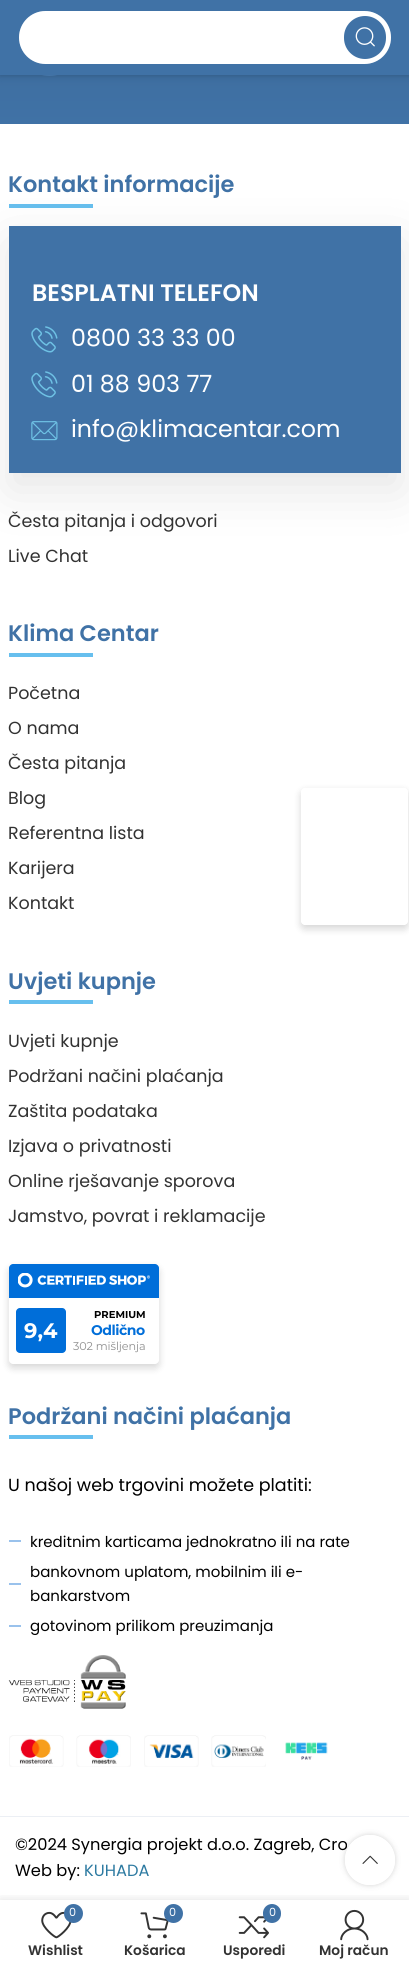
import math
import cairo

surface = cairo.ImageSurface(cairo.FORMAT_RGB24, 409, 1968)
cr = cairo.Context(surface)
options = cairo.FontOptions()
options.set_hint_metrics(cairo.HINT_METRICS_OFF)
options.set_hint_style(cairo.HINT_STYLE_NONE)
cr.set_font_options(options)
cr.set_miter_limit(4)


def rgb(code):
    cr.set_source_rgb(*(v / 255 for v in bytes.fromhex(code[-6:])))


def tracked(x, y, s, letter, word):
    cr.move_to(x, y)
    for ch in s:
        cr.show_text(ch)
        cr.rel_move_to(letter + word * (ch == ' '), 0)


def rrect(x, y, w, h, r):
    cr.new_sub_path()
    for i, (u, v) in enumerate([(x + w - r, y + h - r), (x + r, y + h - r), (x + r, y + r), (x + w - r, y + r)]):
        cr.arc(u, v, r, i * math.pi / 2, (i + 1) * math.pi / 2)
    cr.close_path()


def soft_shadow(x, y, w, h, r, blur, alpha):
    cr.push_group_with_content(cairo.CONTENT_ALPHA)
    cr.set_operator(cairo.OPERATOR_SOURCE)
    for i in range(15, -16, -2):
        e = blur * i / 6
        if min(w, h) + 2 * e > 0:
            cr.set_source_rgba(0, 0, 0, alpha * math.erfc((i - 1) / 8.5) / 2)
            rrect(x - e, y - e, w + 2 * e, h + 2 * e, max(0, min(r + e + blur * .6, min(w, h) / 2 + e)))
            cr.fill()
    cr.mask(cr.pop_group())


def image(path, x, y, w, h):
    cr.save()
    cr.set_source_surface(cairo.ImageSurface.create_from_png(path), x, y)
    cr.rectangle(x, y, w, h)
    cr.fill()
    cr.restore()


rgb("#ffffff")
cr.paint()
gradient = cairo.LinearGradient(205, -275, 205, 124)
gradient.add_color_stop_rgba(0.05, 0.196, 0.349, 0.506, 1)
gradient.add_color_stop_rgba(1, 0.251, 0.447, 0.651, 1)
cr.set_source(gradient)
cr.rectangle(0, 75, 409, 49)
cr.fill()
cr.arc(49.5, 44.5, 29.5, 0, 2 * math.pi)
rgb("#4c82bb")
cr.set_line_width(4)
cr.stroke()
rgb("#000000")
soft_shadow(0, 1, 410, 75, 0, 2, 0.1)
soft_shadow(0, 1, 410, 75, 0, 5, 0.1)
rgb("#4072a6")
cr.rectangle(0, 0, 409, 75)
cr.fill()
rgb("#ffffff")
rrect(19, 11, 372, 53, 26.5)
cr.fill()
rrect(19.5, 11.5, 371, 52, 26)
cr.set_source_rgba(1, 1, 1, 0.2)
cr.set_line_width(1)
cr.stroke()
rgb("#4072a6")
rrect(344, 16, 42, 43, 21)
cr.fill()
image("img/1.png", 355, 27, 20, 20)
rgb("#67bfee")
cr.rectangle(9, 204, 84, 4)
cr.fill()
rgb("#000000")
soft_shadow(9, 244, 392, 246, 0, 25, 0.1)
rgb("#4072a6")
cr.rectangle(9, 226, 392, 247)
cr.fill()
image("img/2.png", 31, 326, 27, 27)
image("img/2.png", 31, 371, 27, 27)
image("img/3.png", 31, 421, 27, 20)
rgb("#67bfee")
cr.rectangle(9, 653, 84, 4)
cr.fill()
cr.rectangle(9, 1000, 84, 4)
cr.fill()
rgb("#000000")
soft_shadow(9, 1268, 150, 100, 4, 4, 0.16)
rgb("#006ed9")
cr.new_path()
cr.move_to(13, 1264)
cr.line_to(155, 1264)
cr.curve_to(157, 1264, 159, 1266, 159, 1268)
cr.line_to(159, 1298)
cr.line_to(9, 1298)
cr.line_to(9, 1268)
cr.curve_to(9, 1266, 11, 1264, 13, 1264)
cr.close_path()
cr.fill()
image("img/4.png", 18, 1273, 132, 15)
rgb("#ffffff")
cr.new_path()
cr.move_to(9, 1298)
cr.line_to(159, 1298)
cr.line_to(159, 1360)
cr.curve_to(159, 1362, 157, 1364, 155, 1364)
cr.line_to(13, 1364)
cr.curve_to(11, 1364, 9, 1362, 9, 1360)
cr.close_path()
cr.fill()
rgb("#006ed9")
rrect(16, 1308, 50, 45, 4)
cr.fill()
for x, y, w, h, color in [
    (9, 1435, 84, 4, "#67bfee"),
    (9, 1540, 12, 2, "#9ac2ec"),
    (9, 1583, 12, 2, "#9ac2ec"),
    (9, 1625, 12, 2, "#9ac2ec"),
]:
    rgb(color)
    cr.rectangle(x, y, w, h)
    cr.fill()
image("img/5.png", 8, 1655, 118, 54)
image("img/6.png", 9, 1735, 55, 32)
image("img/7.png", 76, 1735, 55, 32)
image("img/8.png", 144, 1735, 55, 32)
image("img/9.png", 211, 1735, 55, 32)
image("img/10.png", 285, 1742, 43, 18)
rgb("#eceff4")
cr.rectangle(0, 1816, 409, 1)
cr.fill()
cr.save()
cr.set_fill_rule(cairo.FILL_RULE_EVEN_ODD)
cr.new_path()
cr.move_to(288, 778)
cr.line_to(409, 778)
cr.line_to(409, 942)
cr.line_to(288, 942)
cr.close_path()
cr.move_to(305, 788)
cr.line_to(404, 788)
cr.curve_to(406, 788, 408, 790, 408, 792)
cr.line_to(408, 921)
cr.curve_to(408, 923, 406, 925, 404, 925)
cr.line_to(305, 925)
cr.curve_to(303, 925, 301, 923, 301, 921)
cr.line_to(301, 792)
cr.curve_to(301, 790, 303, 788, 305, 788)
cr.close_path()
cr.clip()
rgb("#000000")
soft_shadow(301, 791, 107, 138, 4, 4, 0.16)
cr.restore()
cr.save()
cr.set_fill_rule(cairo.FILL_RULE_EVEN_ODD)
cr.new_path()
cr.move_to(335, 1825)
cr.line_to(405, 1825)
cr.line_to(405, 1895)
cr.line_to(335, 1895)
cr.close_path()
cr.move_to(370, 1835)
cr.curve_to(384, 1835, 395, 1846, 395, 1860)
cr.curve_to(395, 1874, 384, 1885, 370, 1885)
cr.curve_to(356, 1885, 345, 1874, 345, 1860)
cr.curve_to(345, 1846, 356, 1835, 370, 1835)
cr.close_path()
cr.clip()
rgb("#000000")
soft_shadow(345, 1835, 50, 50, 25, 3, 0.17)
cr.restore()
cr.select_font_face("Poppins SemiBold")
cr.set_font_size(22.5)
rgb("#4072a6")
cr.move_to(8, 192)
cr.show_text("Kontakt informacije")
cr.set_font_size(23.75)
rgb("#ffffff")
cr.move_to(32, 301)
cr.show_text("BESPLATNI TELEFON")
cr.select_font_face("Poppins")
for x, y, s in [
    (71, 346, "0800 33 33 00"),
    (71, 392, "01 88 903 77"),
    (71, 437, "info@klimacentar.com"),
]:
    cr.move_to(x, y)
    cr.show_text(s)
cr.set_font_size(17.5)
rgb("#323232")
cr.move_to(8, 527)
cr.show_text("Česta pitanja i odgovori")
cr.move_to(8, 562)
cr.show_text("Live Chat")
cr.select_font_face("Poppins SemiBold")
cr.set_font_size(22.5)
rgb("#4072a6")
cr.move_to(8, 641)
cr.show_text("Klima Centar")
cr.select_font_face("Poppins")
cr.set_font_size(17.5)
rgb("#323232")
for x, y, s in [
    (8, 699, "Početna"),
    (8, 734, "O nama"),
    (8, 769, "Česta pitanja"),
    (8, 804, "Blog"),
    (8, 839, "Referentna lista"),
    (8, 874, "Karijera"),
    (8, 909, "Kontakt"),
]:
    cr.move_to(x, y)
    cr.show_text(s)
cr.select_font_face("Poppins SemiBold")
cr.set_font_size(22.5)
rgb("#4072a6")
cr.move_to(8, 989)
cr.show_text("Uvjeti kupnje")
cr.select_font_face("Poppins")
cr.set_font_size(17.5)
rgb("#323232")
for x, y, s in [
    (8, 1047, "Uvjeti kupnje"),
    (8, 1082, "Podržani načini plaćanja"),
    (8, 1117, "Zaštita podataka"),
    (8, 1152, "Izjava o privatnosti"),
    (8, 1187, "Online rješavanje sporova"),
    (8, 1222, "Jamstvo, povrat i reklamacije"),
]:
    cr.move_to(x, y)
    cr.show_text(s)
cr.select_font_face("Montserrat", cairo.FONT_SLANT_NORMAL, cairo.FONT_WEIGHT_BOLD)
cr.set_font_size(21)
rgb("#ffffff")
cr.move_to(24, 1338)
cr.show_text("9,4")
cr.set_font_size(10)
rgb("#000000")
cr.move_to(94, 1318)
cr.show_text("PREMIUM")
cr.set_font_size(14)
rgb("#006ed9")
tracked(91, 1335, "Odlično", -0.5, 0)
cr.select_font_face("Montserrat")
cr.set_font_size(11.25)
rgb("#8e8e8e")
tracked(73, 1350, "302 mišljenja", -0.1, 0)
cr.select_font_face("Poppins SemiBold")
cr.set_font_size(22.5)
rgb("#4072a6")
cr.move_to(8, 1424)
cr.show_text("Podržani načini plaćanja")
cr.select_font_face("Poppins")
cr.set_font_size(17.5)
rgb("#000000")
cr.move_to(8, 1491)
cr.show_text("U našoj web trgovini možete platiti:")
cr.set_font_size(15)
for x, y, s in [
    (30, 1547, "kreditnim karticama jednokratno ili na rate"),
    (30, 1577, "bankovnom uplatom, mobilnim ili e-"),
    (30, 1601, "bankarstvom"),
    (30, 1631, "gotovinom prilikom preuzimanja"),
]:
    cr.move_to(x, y)
    cr.show_text(s)
cr.set_font_size(16.25)
cr.move_to(15, 1850)
cr.show_text("©2024 Synergia projekt d.o.o. Zagreb, Cro")
cr.move_to(15, 1876)
cr.show_text("Web by:")
rgb("#2d7aa1")
cr.move_to(84, 1876)
cr.show_text("KUHADA")
cr.set_source_rgba(1, 1, 1, 0.9)
cr.new_path()
cr.arc(370, 1860, 25, 0, 2 * math.pi)
cr.fill()
image("img/11.png", 362, 1855, 16, 9)
cr.save()
cr.rectangle(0, 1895, 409, 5)
cr.clip()
rgb("#000000")
soft_shadow(0, 1900, 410, 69, 0, 5.5, 0.12)
cr.restore()
image("img/12.png", 41, 1911, 31, 28)
rgb("#4072a6")
cr.arc(73.5, 1913.5, 9.5, 0, 2 * math.pi)
cr.fill()
cr.set_font_size(11.25)
rgb("#ffffff")
cr.move_to(69, 1916)
cr.show_text("0")
cr.select_font_face("Poppins SemiBold")
cr.set_font_size(13.75)
rgb("#323232")
cr.move_to(28, 1955)
cr.show_text("Wishlist")
image("img/13.png", 140, 1912, 29, 27)
rgb("#4072a6")
cr.arc(173.5, 1913.5, 9.5, 0, 2 * math.pi)
cr.fill()
cr.select_font_face("Poppins")
cr.set_font_size(11.25)
rgb("#ffffff")
cr.move_to(169, 1916)
cr.show_text("0")
cr.select_font_face("Poppins SemiBold")
cr.set_font_size(13.75)
rgb("#323232")
cr.move_to(124, 1955)
cr.show_text("Košarica")
image("img/14.png", 238, 1912, 31, 27)
rgb("#4072a6")
rrect(263, 1904, 18, 19, 9)
cr.fill()
cr.select_font_face("Poppins")
cr.set_font_size(11.25)
rgb("#ffffff")
cr.move_to(269, 1916)
cr.show_text("0")
cr.select_font_face("Poppins SemiBold")
cr.set_font_size(13.75)
rgb("#323232")
cr.move_to(223, 1955)
cr.show_text("Usporedi")
image("img/15.png", 340, 1909, 29, 32)
cr.move_to(319, 1955)
cr.show_text("Moj račun")
surface.write_to_png("page.png")
